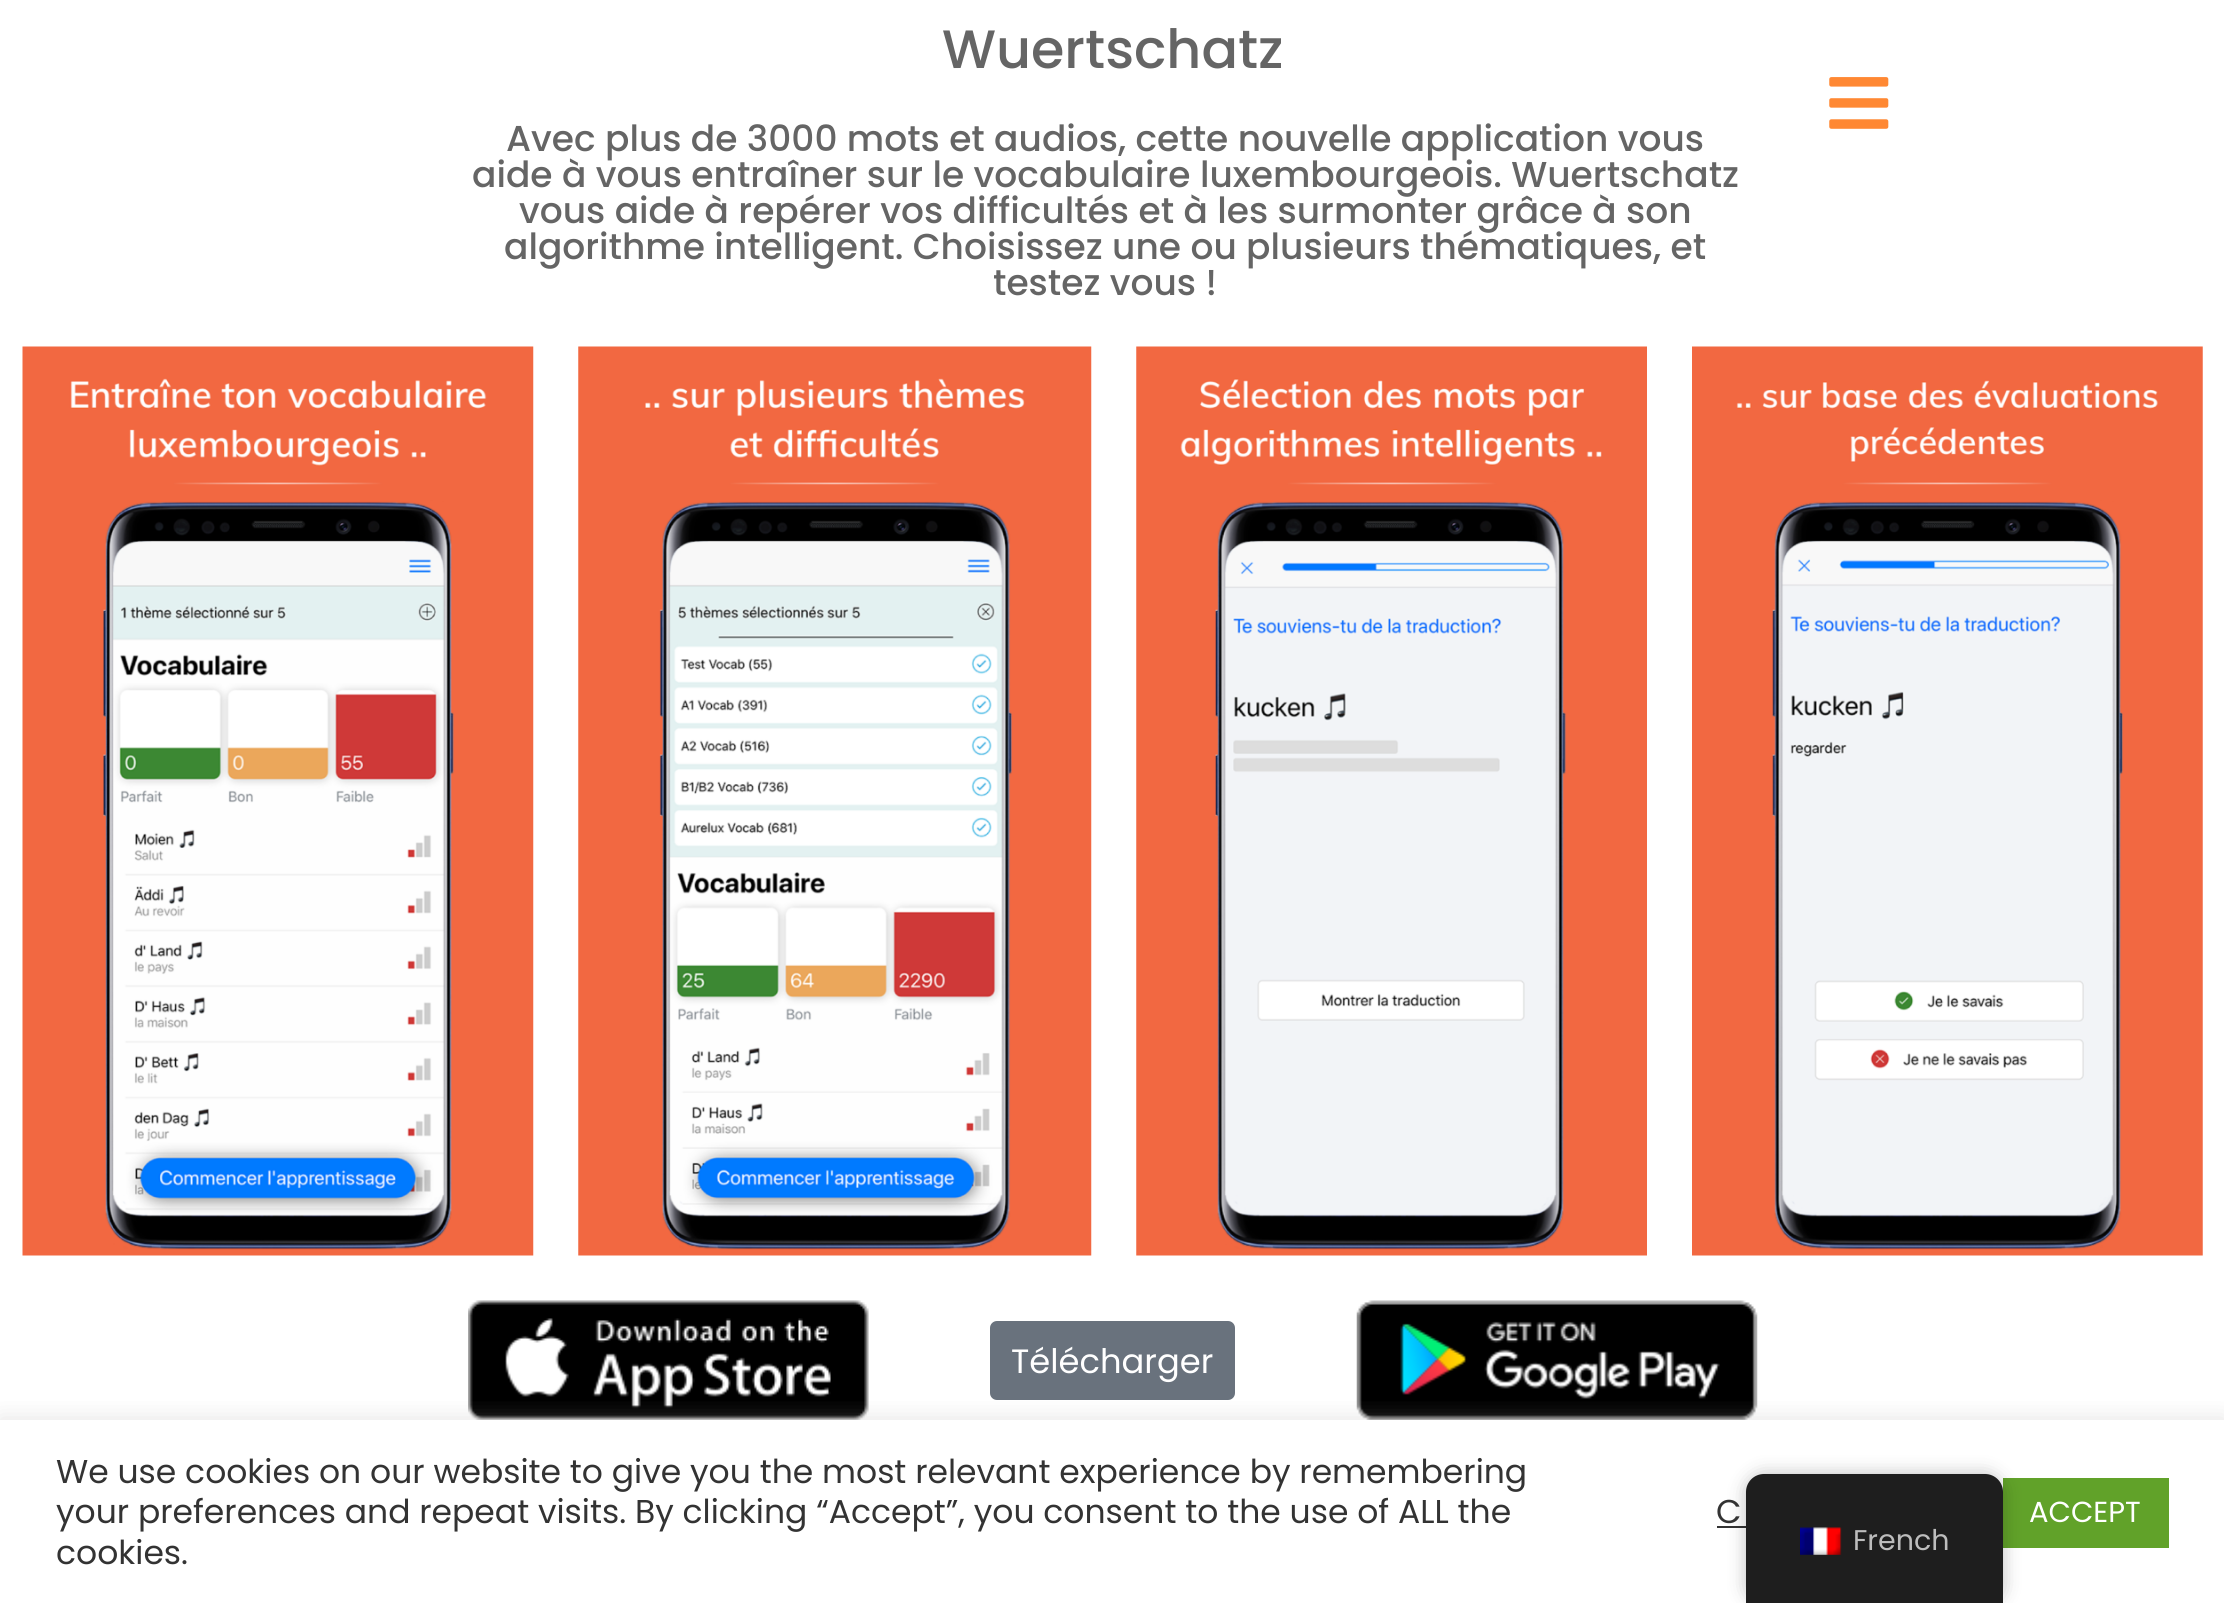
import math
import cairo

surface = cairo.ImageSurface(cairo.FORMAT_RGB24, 2224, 1603)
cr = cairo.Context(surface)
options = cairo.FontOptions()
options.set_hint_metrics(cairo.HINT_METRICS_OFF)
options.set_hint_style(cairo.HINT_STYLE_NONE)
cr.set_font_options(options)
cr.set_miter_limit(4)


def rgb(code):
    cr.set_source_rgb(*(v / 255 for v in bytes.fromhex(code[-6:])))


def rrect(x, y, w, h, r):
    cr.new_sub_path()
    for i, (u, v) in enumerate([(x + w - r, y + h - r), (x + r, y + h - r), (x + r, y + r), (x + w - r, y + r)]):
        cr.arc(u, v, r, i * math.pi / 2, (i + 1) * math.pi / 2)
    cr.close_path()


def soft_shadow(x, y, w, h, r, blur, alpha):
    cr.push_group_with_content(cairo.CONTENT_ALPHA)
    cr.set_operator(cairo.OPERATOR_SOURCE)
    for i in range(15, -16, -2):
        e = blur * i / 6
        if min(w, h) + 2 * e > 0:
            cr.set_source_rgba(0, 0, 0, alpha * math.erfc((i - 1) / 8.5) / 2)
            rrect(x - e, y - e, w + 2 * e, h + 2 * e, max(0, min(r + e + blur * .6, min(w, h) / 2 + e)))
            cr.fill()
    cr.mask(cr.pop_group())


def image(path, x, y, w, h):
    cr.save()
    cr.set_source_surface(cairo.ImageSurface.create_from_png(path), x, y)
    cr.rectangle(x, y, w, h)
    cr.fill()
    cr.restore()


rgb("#ffffff")
cr.paint()
image("img/1.png", 22, 346, 512, 910)
image("img/2.png", 578, 346, 514, 910)
image("img/3.png", 1136, 346, 511, 910)
image("img/4.png", 1692, 346, 511, 910)
image("img/5.png", 468, 1300, 401, 120)
rgb("#69727d")
rrect(990, 1321, 245, 79, 7)
cr.fill()
image("img/6.png", 1356, 1300, 402, 120)
image("img/7.png", 1829, 77, 60, 52)
cr.save()
cr.rectangle(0, 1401, 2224, 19)
cr.clip()
rgb("#acabab")
soft_shadow(0, 1418, 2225, 184, 0, 11, 0.3)
cr.restore()
rgb("#333333")
cr.rectangle(1717, 1526, 29, 2)
cr.fill()
rgb("#61a229")
cr.rectangle(2003, 1478, 166, 70)
cr.fill()
rgb("#000000")
soft_shadow(1746, 1474, 257, 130, 18, 9, 0.25)
rgb("#1e1e1e")
cr.new_path()
cr.move_to(1764, 1474)
cr.line_to(1985, 1474)
cr.curve_to(1995, 1474, 2003, 1482, 2003, 1492)
cr.line_to(2003, 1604)
cr.line_to(1746, 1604)
cr.line_to(1746, 1492)
cr.curve_to(1746, 1482, 1754, 1474, 1764, 1474)
cr.close_path()
cr.fill()
image("img/8.png", 1800, 1527, 42, 28)
cr.select_font_face("Poppins Medium")
cr.set_font_size(54)
rgb("#656565")
cr.move_to(942, 68)
cr.show_text("Wuertschatz")
cr.set_font_size(36)
for x, y, s in [
    (506, 151, "Avec plus de 3000 mots et audios, cette nouvelle application vous"),
    (472, 187, "aide à vous entraîner sur le vocabulaire luxembourgeois. Wuertschatz"),
    (519, 223, "vous aide à repérer vos difficultés et à les surmonter grâce à son"),
    (504, 259, "algorithme intelligent. Choisissez une ou plusieurs thématiques, et"),
    (993, 295, "testez vous !"),
]:
    cr.move_to(x, y)
    cr.show_text(s)
cr.select_font_face("Poppins")
cr.set_font_size(33.75)
rgb("#ffffff")
cr.move_to(1011, 1373)
cr.show_text("Télécharger")
cr.set_font_size(33)
rgb("#333333")
for x, y, s in [
    (56, 1483, "We use cookies on our website to give you the most relevant experience by remembering"),
    (56, 1523, "your preferences and repeat visits. By clicking “Accept”, you consent to the use of ALL the"),
    (56, 1564, "cookies."),
    (1716, 1523, "C"),
]:
    cr.move_to(x, y)
    cr.show_text(s)
cr.set_font_size(29)
rgb("#ffffff")
cr.move_to(2029, 1522)
cr.show_text("ACCEPT")
cr.set_font_size(28.5)
rgb("#bdbdbd")
cr.move_to(1853, 1550)
cr.show_text("French")
surface.write_to_png("page.png")
